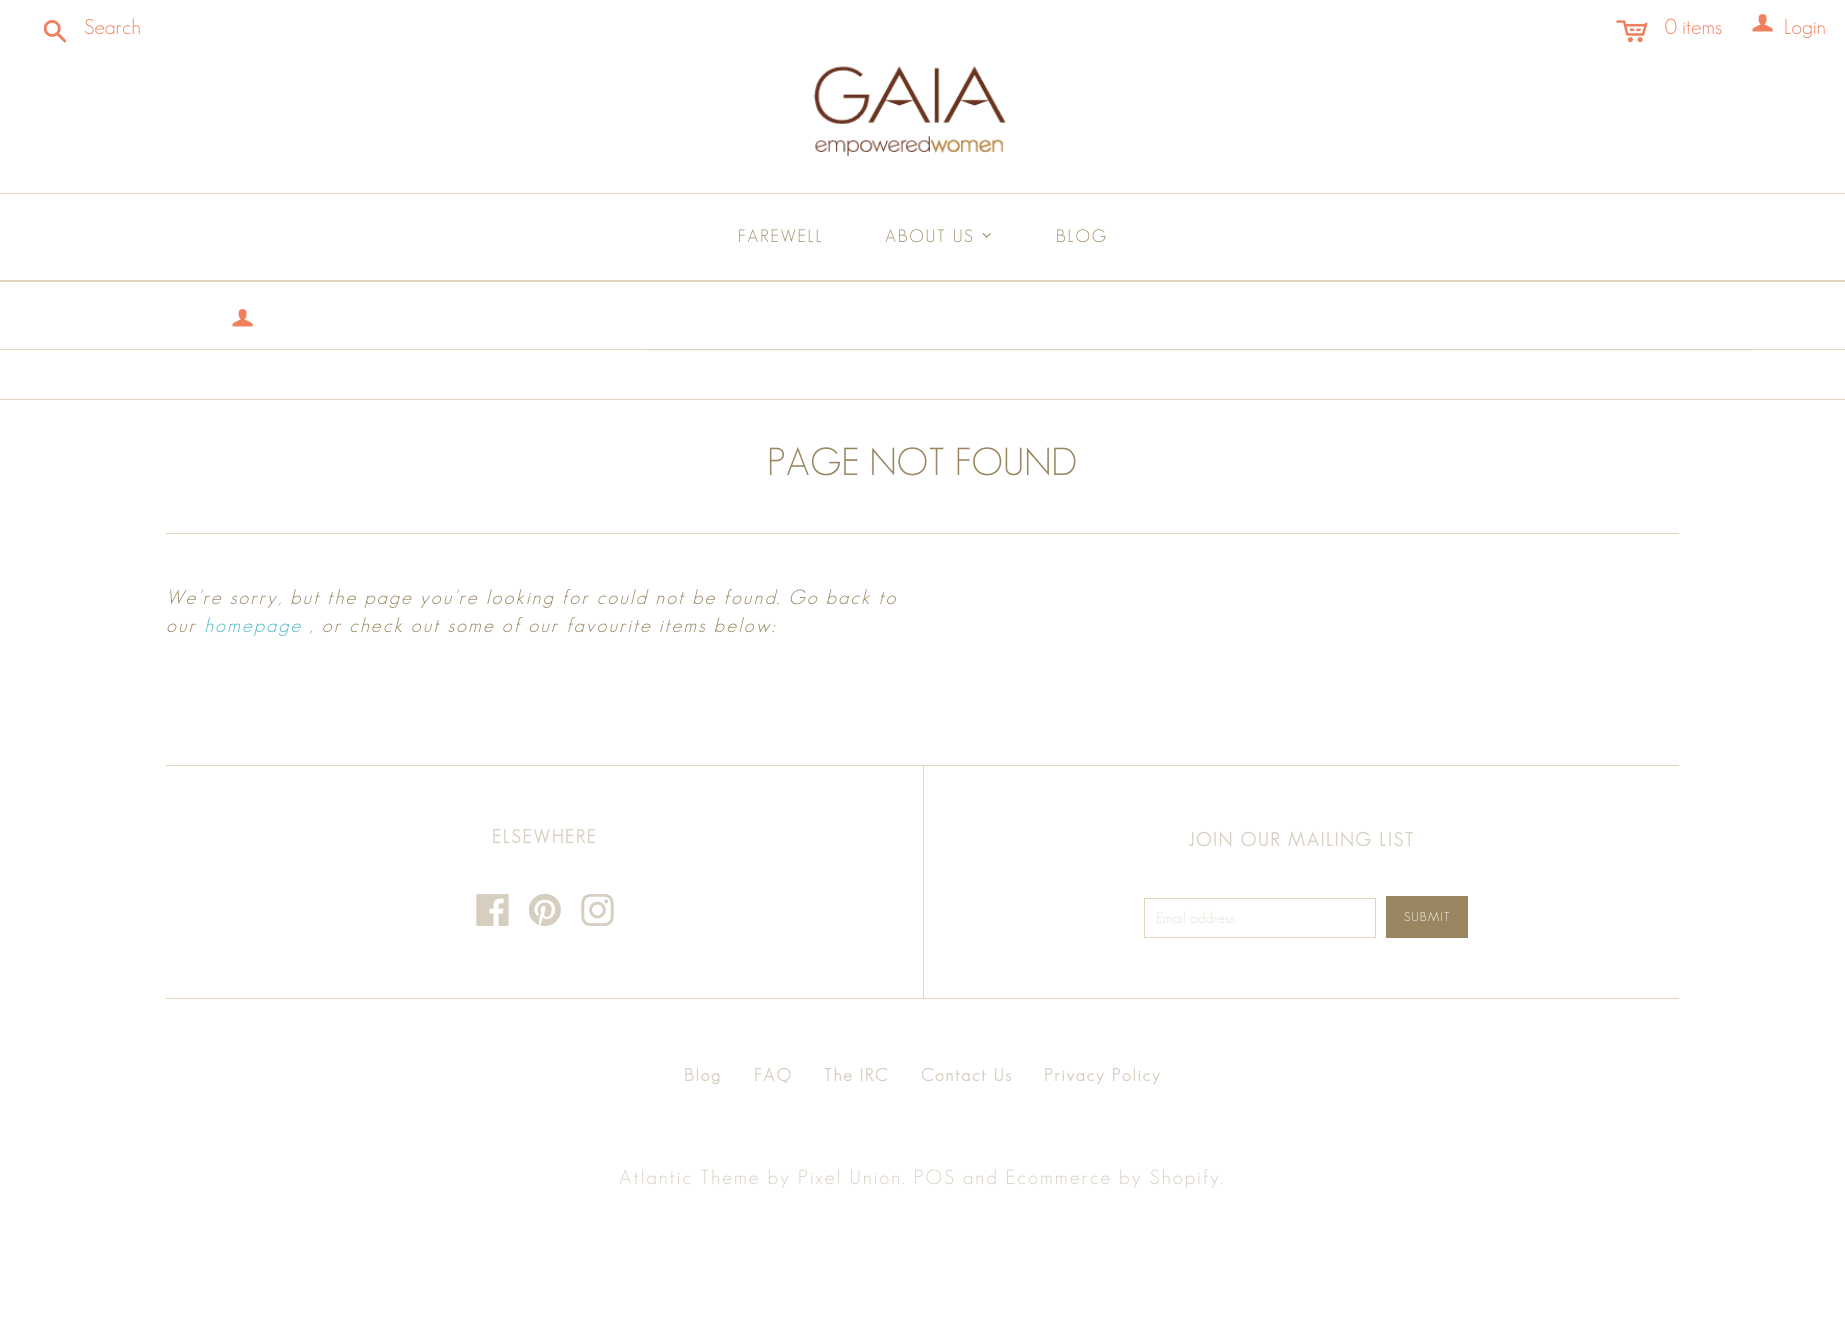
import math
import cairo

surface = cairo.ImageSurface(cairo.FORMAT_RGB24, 1845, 1341)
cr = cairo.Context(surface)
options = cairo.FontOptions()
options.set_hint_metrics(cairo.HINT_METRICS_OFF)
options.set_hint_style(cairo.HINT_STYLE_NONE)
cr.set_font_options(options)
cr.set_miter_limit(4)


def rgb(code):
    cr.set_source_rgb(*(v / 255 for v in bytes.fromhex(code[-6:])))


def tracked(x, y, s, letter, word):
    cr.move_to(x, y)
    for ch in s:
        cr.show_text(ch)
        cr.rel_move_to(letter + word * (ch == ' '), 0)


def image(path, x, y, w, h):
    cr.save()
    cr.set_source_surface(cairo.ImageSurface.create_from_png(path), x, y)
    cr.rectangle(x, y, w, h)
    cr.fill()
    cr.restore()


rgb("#ffffff")
cr.paint()
image("img/1.png", 44, 20, 22, 23)
image("img/2.png", 1616, 20, 32, 23)
image("img/3.png", 1752, 14, 21, 18)
image("img/4.png", 814, 66, 192, 91)
rgb("#e3d5ba")
cr.rectangle(0, 193, 1845, 1)
cr.fill()
image("img/5.png", 982, 233, 9, 5)
cr.rectangle(0, 280, 1845, 2)
cr.fill()
image("img/3.png", 232, 309, 21, 18)
for x, y, w, h, color in [
    (0, 349, 1845, 1, "#e3d5ba"),
    (0, 399, 1845, 1, "#e3d5ba"),
    (646, 350, 1107, 1, "#f2f2f2"),
    (166, 533, 1513, 1, "#e3d5ba"),
    (166, 765, 1513, 1, "#e3d5ba"),
    (166, 998, 1513, 1, "#e3d5ba"),
]:
    rgb(color)
    cr.rectangle(x, y, w, h)
    cr.fill()
image("img/6.png", 476, 894, 33, 32)
image("img/7.png", 529, 894, 32, 32)
image("img/8.png", 581, 894, 33, 32)
cr.rectangle(923, 766, 1, 232)
cr.fill()
cr.rectangle(1144.5, 898.5, 231, 39)
cr.set_line_width(1)
cr.stroke()
rgb("#99855f")
cr.rectangle(1386, 896, 82, 42)
cr.fill()
cr.select_font_face("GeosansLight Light")
cr.set_font_size(21)
rgb("#f07f5d")
for x, y, s in [
    (84, 34, "Search"),
    (1665, 34, "0 items"),
    (1784, 34, "Login"),
]:
    cr.move_to(x, y)
    cr.show_text(s)
cr.set_font_size(17.5)
rgb("#99855f")
for x, y, s in [
    (738, 242, "FAREWELL"),
    (885, 242, "ABOUT US"),
    (1056, 242, "BLOG"),
]:
    tracked(x, y, s, 1.75, 0)
cr.set_font_size(38.25)
cr.move_to(767, 475)
cr.show_text("PAGE NOT FOUND")
cr.select_font_face("GeosansLight Light", cairo.FONT_SLANT_ITALIC)
cr.set_font_size(20)
tracked(166, 604, "We're sorry, but the page you're looking for could not be found. Go back to", 2, 0)
tracked(166, 632, "our", 2, 0)
rgb("#4eb8c4")
tracked(204, 632, "homepage", 2, 0)
rgb("#99855f")
tracked(309, 632, ", or check out some of our favourite items below:", 2, 0)
cr.select_font_face("GeosansLight", cairo.FONT_SLANT_NORMAL, cairo.FONT_WEIGHT_BOLD)
cr.set_font_size(18.75)
rgb("#d6cebf")
tracked(492, 843, "ELSEWHERE", 1.9, 0)
tracked(1188, 846, "JOIN OUR MAILING LIST", 1.9, 0)
cr.select_font_face("GeosansLight Light")
cr.set_font_size(15)
rgb("#e5e0d7")
cr.move_to(1156, 923)
cr.show_text("Email address")
cr.set_font_size(12.5)
rgb("#ffffff")
tracked(1404, 921, "SUBMIT", 1.25, 0)
cr.select_font_face("GeosansLight", cairo.FONT_SLANT_NORMAL, cairo.FONT_WEIGHT_BOLD)
cr.set_font_size(17.5)
rgb("#d6cebf")
for x, y, s in [
    (684, 1081, "Blog"),
    (754, 1081, "FAQ"),
    (824, 1081, "The IRC"),
    (921, 1081, "Contact Us"),
    (1044, 1081, "Privacy Policy"),
]:
    tracked(x, y, s, 1.75, 0)
cr.select_font_face("GeosansLight Light")
cr.set_font_size(20)
tracked(619, 1184, "Atlantic Theme by Pixel Union. POS and Ecommerce by Shopify.", 2, 0)
surface.write_to_png("page.png")
